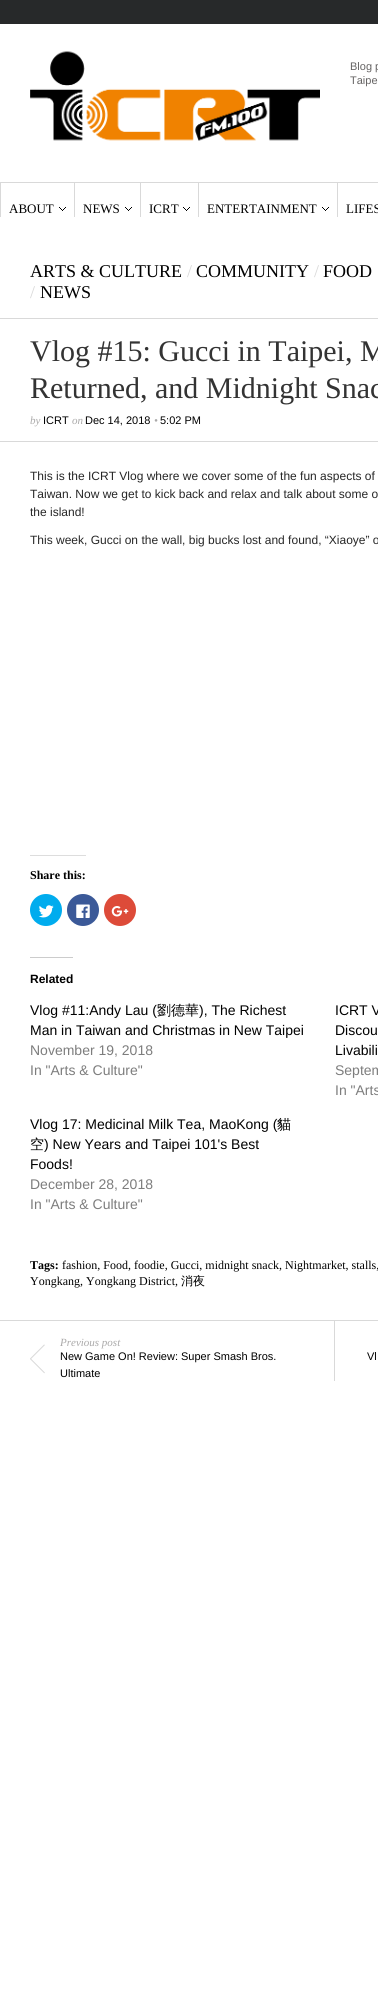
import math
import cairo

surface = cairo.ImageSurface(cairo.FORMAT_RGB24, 378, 1993)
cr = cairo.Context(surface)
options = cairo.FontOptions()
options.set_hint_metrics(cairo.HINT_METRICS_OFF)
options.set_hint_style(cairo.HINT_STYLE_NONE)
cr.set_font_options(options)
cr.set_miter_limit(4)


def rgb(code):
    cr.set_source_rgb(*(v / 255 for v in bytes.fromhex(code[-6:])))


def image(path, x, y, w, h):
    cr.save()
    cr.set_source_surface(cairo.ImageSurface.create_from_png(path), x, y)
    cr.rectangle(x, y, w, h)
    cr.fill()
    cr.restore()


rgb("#27292a")
cr.paint()
rgb("#ffffff")
cr.rectangle(0, 24, 378, 1969)
cr.fill()
image("img/1.png", 30, 51, 290, 90)
rgb("#d9d9d9")
cr.rectangle(0, 182, 378, 1)
cr.fill()
cr.rectangle(0, 183, 1, 34)
cr.fill()
image("img/2.png", 59, 207, 7, 4)
cr.rectangle(74, 183, 1, 34)
cr.fill()
image("img/2.png", 125, 207, 7, 4)
cr.rectangle(140, 183, 1, 34)
cr.fill()
image("img/2.png", 183, 207, 7, 4)
cr.rectangle(198, 183, 1, 34)
cr.fill()
image("img/2.png", 322, 207, 7, 4)
for x, y, w, h, color in [
    (337, 183, 1, 34, "#d9d9d9"),
    (0, 318, 378, 1, "#d9d9d9"),
    (0, 1320, 378, 1, "#d9d9d9"),
    (0, 441, 378, 1, "#d9d9d9"),
    (30, 855, 56, 1, "#dddddd"),
]:
    rgb(color)
    cr.rectangle(x, y, w, h)
    cr.fill()
rgb("#00acee")
cr.arc(46, 910, 16, 0, 2 * math.pi)
cr.fill()
image("img/3.png", 38, 905, 16, 13)
rgb("#3b5998")
cr.arc(83, 910, 16, 0, 2 * math.pi)
cr.fill()
image("img/4.png", 76, 904, 14, 14)
rgb("#dd4b39")
cr.arc(120, 910, 16, 0, 2 * math.pi)
cr.fill()
image("img/5.png", 111, 906, 18, 11)
rgb("#cccccc")
cr.rectangle(30, 957, 43, 1)
cr.fill()
image("img/6.png", 30, 1344, 15, 30)
rgb("#d9d9d9")
cr.rectangle(334, 1321, 1, 60)
cr.fill()
cr.select_font_face("Liberation Sans")
cr.set_font_size(11)
rgb("#656363")
cr.move_to(350, 70)
cr.show_text("Blog p")
cr.move_to(350, 84)
cr.show_text("Taipe")
cr.select_font_face("Liberation Serif")
cr.set_font_size(13)
rgb("#000000")
for x, y, s in [
    (9, 213, "ABOUT"),
    (83, 213, "NEWS"),
    (149, 213, "ICRT"),
    (207, 213, "ENTERTAINMENT"),
    (346, 213, "LIFES"),
]:
    cr.move_to(x, y)
    cr.show_text(s)
cr.set_font_size(18)
cr.move_to(30, 277)
cr.show_text("ARTS & CULTURE")
rgb("#d9d9d9")
cr.move_to(187, 277)
cr.show_text("/")
rgb("#000000")
cr.move_to(196, 277)
cr.show_text("COMMUNITY")
rgb("#d9d9d9")
cr.move_to(314, 277)
cr.show_text("/")
rgb("#000000")
cr.move_to(323, 277)
cr.show_text("FOOD")
rgb("#d9d9d9")
cr.move_to(30, 298)
cr.show_text("/")
rgb("#000000")
cr.move_to(40, 298)
cr.show_text("NEWS")
cr.set_font_size(30)
rgb("#333333")
cr.move_to(30, 361)
cr.show_text("Vlog #15: Gucci in Taipei, M")
cr.move_to(30, 398)
cr.show_text("Returned, and Midnight Snac")
cr.select_font_face("Liberation Serif", cairo.FONT_SLANT_ITALIC)
cr.set_font_size(11)
rgb("#aaa9a9")
cr.move_to(30, 424)
cr.show_text("by")
cr.select_font_face("Liberation Sans")
rgb("#000000")
cr.move_to(43, 424)
cr.show_text("ICRT")
cr.select_font_face("Liberation Serif", cairo.FONT_SLANT_ITALIC)
rgb("#aaa9a9")
cr.move_to(72, 424)
cr.show_text("on")
cr.select_font_face("Liberation Sans")
rgb("#000000")
cr.move_to(85, 424)
cr.show_text("Dec 14, 2018")
cr.select_font_face("Liberation Serif", cairo.FONT_SLANT_ITALIC)
rgb("#aaa9a9")
cr.move_to(154, 424)
cr.show_text("•")
cr.select_font_face("Liberation Sans")
rgb("#000000")
cr.move_to(160, 424)
cr.show_text("5:02 PM")
cr.set_font_size(12)
rgb("#262626")
for x, y, s in [
    (30, 480, "This is the ICRT Vlog where we cover some of the fun aspects of"),
    (30, 498, "Taiwan. Now we get to kick back and relax and talk about some o"),
    (30, 516, "the island!"),
    (30, 544, "This week, Gucci on the wall, big bucks lost and found, “Xiaoye” o"),
]:
    cr.move_to(x, y)
    cr.show_text(s)
cr.select_font_face("Liberation Serif", cairo.FONT_SLANT_NORMAL, cairo.FONT_WEIGHT_BOLD)
rgb("#000000")
cr.move_to(30, 879)
cr.show_text("Share this:")
cr.select_font_face("Liberation Sans", cairo.FONT_SLANT_NORMAL, cairo.FONT_WEIGHT_BOLD)
cr.move_to(30, 983)
cr.show_text("Related")
cr.select_font_face("Liberation Sans")
cr.set_font_size(14)
cr.move_to(30, 1015)
cr.show_text("Vlog #11:Andy Lau (")
cr.select_font_face("WenQuanYi Zen Hei Medium")
cr.move_to(157, 1015)
cr.show_text("劉德華")
cr.select_font_face("Liberation Sans")
cr.move_to(199, 1015)
cr.show_text("), The Richest")
cr.move_to(30, 1035)
cr.show_text("Man in Taiwan and Christmas in New Taipei")
rgb("#7d7d7d")
cr.move_to(30, 1055)
cr.show_text("November 19, 2018")
cr.move_to(30, 1075)
cr.show_text("In \"Arts & Culture\"")
rgb("#000000")
for x, y, s in [
    (335, 1015, "ICRT V"),
    (335, 1035, "Discou"),
    (335, 1055, "Livabili"),
]:
    cr.move_to(x, y)
    cr.show_text(s)
rgb("#7d7d7d")
cr.move_to(335, 1075)
cr.show_text("Septem")
cr.move_to(335, 1095)
cr.show_text("In \"Arts")
rgb("#000000")
cr.move_to(30, 1129)
cr.show_text("Vlog 17: Medicinal Milk Tea, MaoKong (")
cr.select_font_face("WenQuanYi Zen Hei Medium")
cr.move_to(277, 1129)
cr.show_text("貓")
cr.move_to(30, 1149)
cr.show_text("空")
cr.select_font_face("Liberation Sans")
cr.move_to(44, 1149)
cr.show_text(") New Years and Taipei 101's Best")
cr.move_to(30, 1169)
cr.show_text("Foods!")
rgb("#7d7d7d")
cr.move_to(30, 1189)
cr.show_text("December 28, 2018")
cr.move_to(30, 1209)
cr.show_text("In \"Arts & Culture\"")
cr.select_font_face("Liberation Serif", cairo.FONT_SLANT_NORMAL, cairo.FONT_WEIGHT_BOLD)
cr.set_font_size(12)
rgb("#000000")
cr.move_to(30, 1269)
cr.show_text("Tags:")
cr.select_font_face("Liberation Serif")
cr.move_to(62, 1269)
cr.show_text("fashion, Food, foodie, Gucci, midnight snack, Nightmarket, stalls,")
cr.move_to(30, 1285)
cr.show_text("Yongkang, Yongkang District,")
cr.select_font_face("WenQuanYi Zen Hei Medium")
cr.move_to(181, 1285)
cr.show_text("消夜")
cr.select_font_face("Liberation Serif", cairo.FONT_SLANT_ITALIC)
cr.set_font_size(11)
rgb("#aaa9a9")
cr.move_to(60, 1346)
cr.show_text("Previous post")
cr.select_font_face("Liberation Sans")
rgb("#000000")
for x, y, s in [
    (60, 1360, "New Game On! Review: Super Smash Bros."),
    (60, 1377, "Ultimate"),
    (367, 1360, "Vl"),
]:
    cr.move_to(x, y)
    cr.show_text(s)
surface.write_to_png("page.png")
